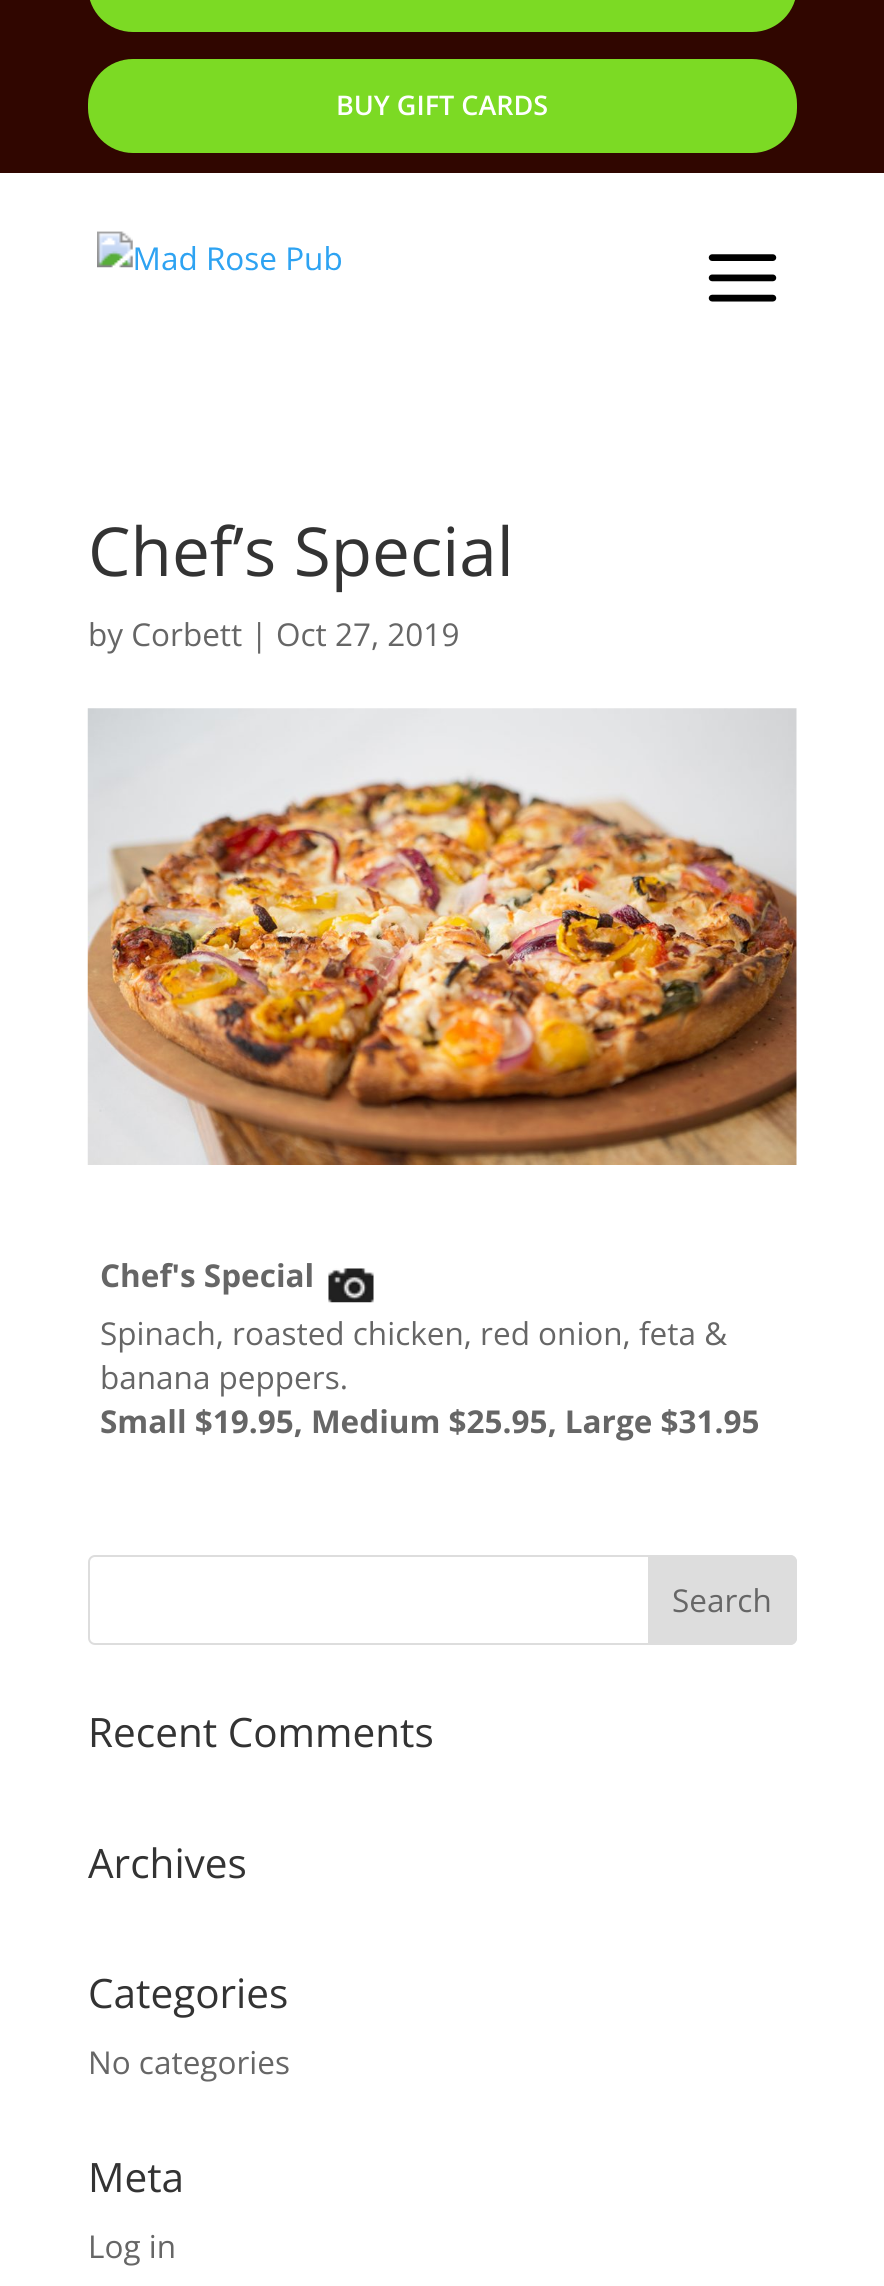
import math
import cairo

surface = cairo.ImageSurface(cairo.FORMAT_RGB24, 884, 2286)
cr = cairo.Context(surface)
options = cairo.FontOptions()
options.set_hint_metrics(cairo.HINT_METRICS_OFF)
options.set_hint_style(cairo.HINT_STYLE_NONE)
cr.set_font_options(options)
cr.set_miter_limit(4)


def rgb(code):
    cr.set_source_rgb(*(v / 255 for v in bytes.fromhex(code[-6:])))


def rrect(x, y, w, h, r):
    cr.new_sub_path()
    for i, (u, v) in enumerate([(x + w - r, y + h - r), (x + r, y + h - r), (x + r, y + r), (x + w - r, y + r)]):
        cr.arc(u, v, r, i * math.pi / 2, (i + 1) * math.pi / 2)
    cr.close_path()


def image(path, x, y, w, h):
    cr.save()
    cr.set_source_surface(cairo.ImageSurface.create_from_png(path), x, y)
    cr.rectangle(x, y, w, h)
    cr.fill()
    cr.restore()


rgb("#ffffff")
cr.paint()
rgb("#300600")
cr.rectangle(0, 0, 884, 173)
cr.fill()
rgb("#7cda24")
rrect(88, -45, 709, 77, 45)
cr.fill()
rrect(88, 59, 709, 94, 45)
cr.fill()
image("img/1.png", 97, 231, 244, 40)
image("img/2.png", 708, 254, 69, 48)
image("img/3.png", 87, 708, 710, 457)
image("img/4.png", 328, 1268, 46, 35)
rrect(89, 1556, 707, 88, 6)
rgb("#dddddd")
cr.stroke()
cr.new_path()
cr.move_to(649, 1556)
cr.line_to(790, 1556)
cr.curve_to(793.5, 1556, 796, 1558.5, 796, 1562)
cr.line_to(796, 1638)
cr.curve_to(796, 1641.5, 793.5, 1644, 790, 1644)
cr.line_to(649, 1644)
cr.close_path()
cr.fill_preserve()
cr.stroke()
cr.select_font_face("Open Sans SemiBold")
cr.set_font_size(27)
rgb("#ffffff")
cr.move_to(336, 115)
cr.show_text("BUY GIFT CARDS")
cr.select_font_face("Open Sans")
cr.set_font_size(67.5)
rgb("#333333")
cr.move_to(88, 576)
cr.show_text("Chef’s Special")
cr.set_font_size(31.5)
rgb("#666666")
cr.move_to(88, 646)
cr.show_text("by Corbett | Oct 27, 2019")
cr.select_font_face("Open Sans", cairo.FONT_SLANT_NORMAL, cairo.FONT_WEIGHT_BOLD)
cr.move_to(100, 1287)
cr.show_text("Chef's Special")
cr.select_font_face("Open Sans")
cr.move_to(100, 1345)
cr.show_text("Spinach, roasted chicken, red onion, feta &")
cr.move_to(100, 1389)
cr.show_text("banana peppers.")
cr.select_font_face("Open Sans", cairo.FONT_SLANT_NORMAL, cairo.FONT_WEIGHT_BOLD)
cr.move_to(100, 1433)
cr.show_text("Small $19.95, Medium $25.95, Large $31.95")
cr.select_font_face("Open Sans")
cr.move_to(672, 1612)
cr.show_text("Search")
cr.set_font_size(40.5)
rgb("#333333")
for x, y, s in [
    (88, 1747, "Recent Comments"),
    (88, 1878, "Archives"),
    (88, 2008, "Categories"),
]:
    cr.move_to(x, y)
    cr.show_text(s)
cr.set_font_size(31.5)
rgb("#666666")
cr.move_to(88, 2074)
cr.show_text("No categories")
cr.set_font_size(40.5)
rgb("#333333")
cr.move_to(88, 2192)
cr.show_text("Meta")
cr.set_font_size(31.5)
rgb("#666666")
cr.move_to(88, 2258)
cr.show_text("Log in")
surface.write_to_png("page.png")
